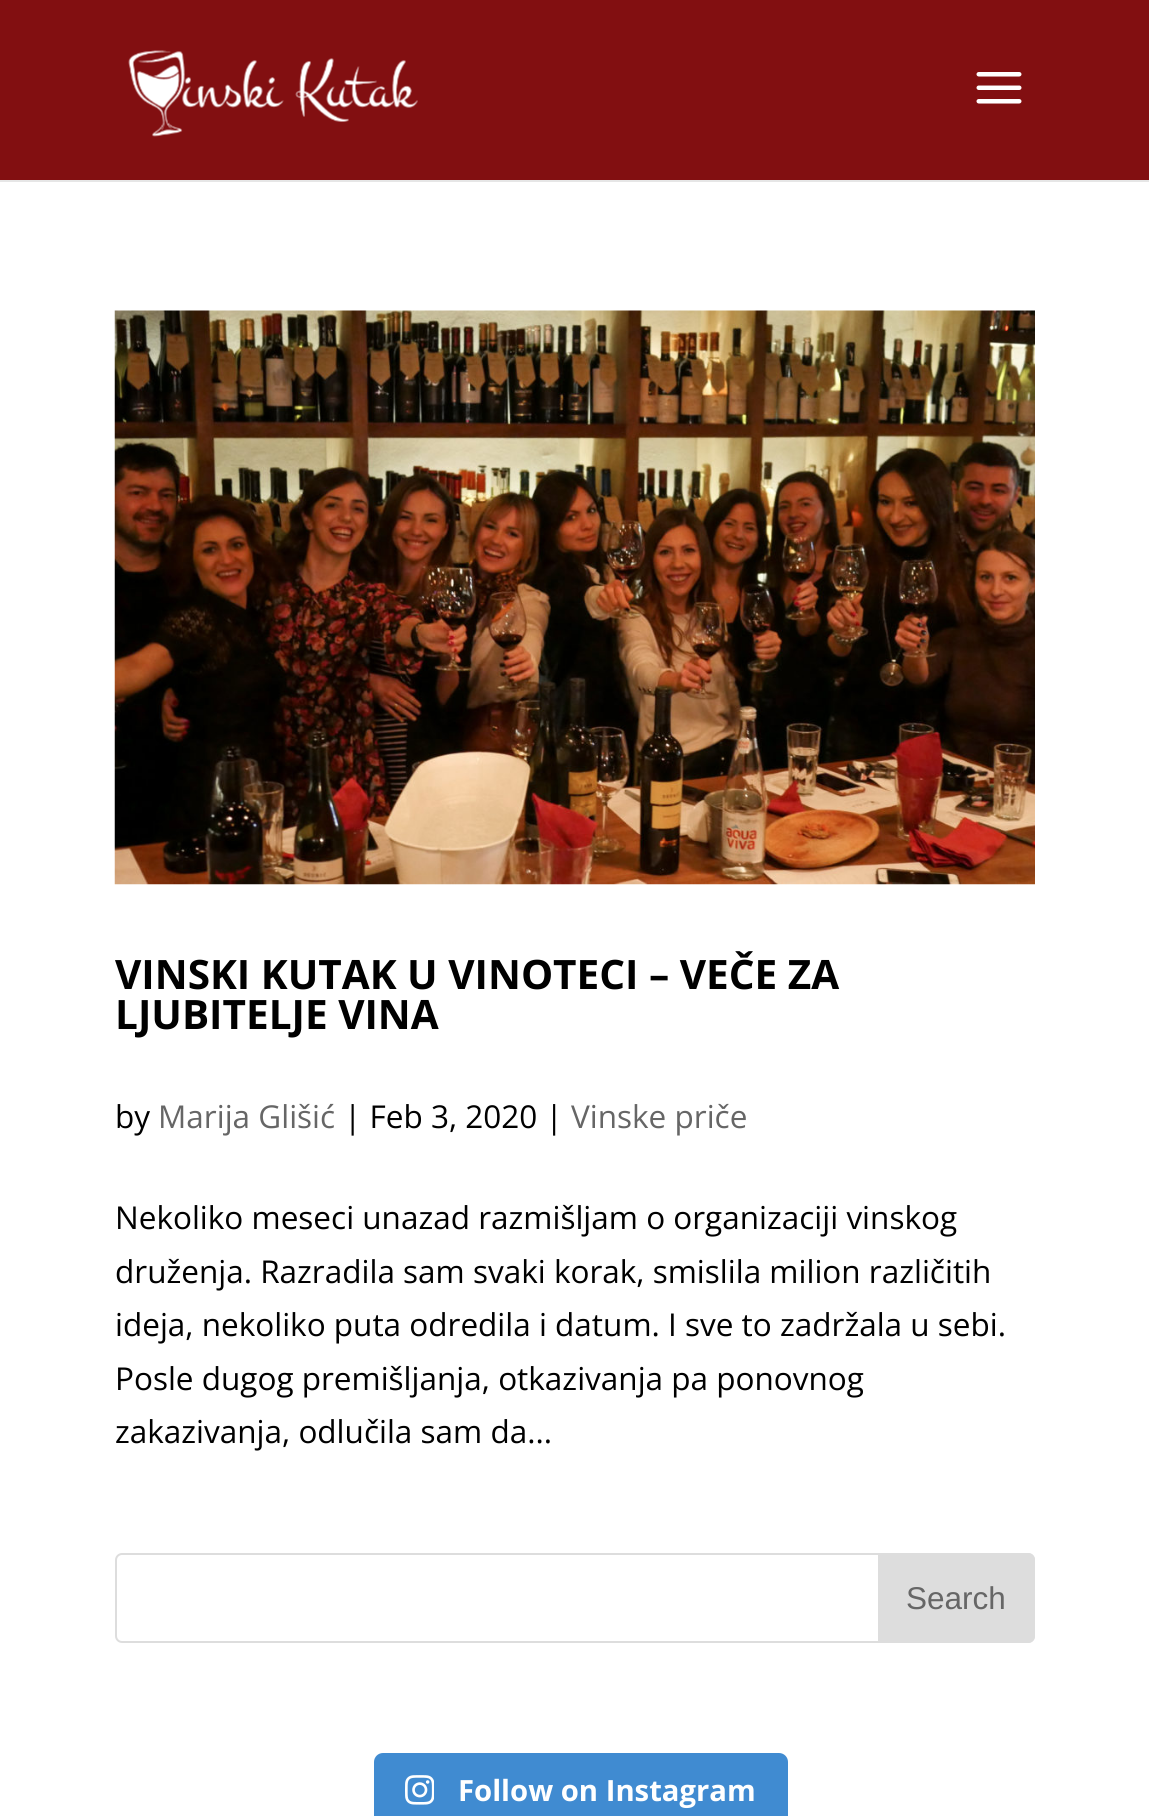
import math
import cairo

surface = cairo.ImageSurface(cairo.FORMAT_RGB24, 1149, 1816)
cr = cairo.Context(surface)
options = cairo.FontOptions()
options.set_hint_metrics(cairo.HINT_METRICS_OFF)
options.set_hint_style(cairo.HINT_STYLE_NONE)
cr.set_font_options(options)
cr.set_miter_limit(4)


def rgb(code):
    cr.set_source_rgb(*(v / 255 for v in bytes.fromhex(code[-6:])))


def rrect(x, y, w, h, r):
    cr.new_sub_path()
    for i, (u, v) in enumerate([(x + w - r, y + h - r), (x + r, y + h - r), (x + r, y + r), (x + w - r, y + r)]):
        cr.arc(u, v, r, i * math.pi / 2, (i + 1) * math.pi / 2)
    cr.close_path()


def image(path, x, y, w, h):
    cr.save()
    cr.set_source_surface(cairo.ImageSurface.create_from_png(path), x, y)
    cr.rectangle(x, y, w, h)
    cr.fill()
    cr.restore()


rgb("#ffffff")
cr.paint()
rgb("#e6e6e6")
cr.new_path()
cr.move_to(0, 180)
cr.line_to(0, 182)
cr.line_to(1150, 182)
cr.line_to(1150, 2)
cr.line_to(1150, 180)
cr.close_path()
cr.fill()
rgb("#820f11")
cr.rectangle(0, 0, 1149, 180)
cr.fill()
image("img/1.png", 128, 50, 290, 87)
image("img/2.png", 976, 72, 46, 32)
image("img/3.png", 114, 310, 921, 575)
rrect(116, 1554, 918, 88, 6)
rgb("#dddddd")
cr.stroke()
cr.new_path()
cr.move_to(879, 1554)
cr.line_to(1028, 1554)
cr.curve_to(1031.5, 1554, 1034, 1556.5, 1034, 1560)
cr.line_to(1034, 1636)
cr.curve_to(1034, 1639.5, 1031.5, 1642, 1028, 1642)
cr.line_to(879, 1642)
cr.close_path()
cr.fill_preserve()
cr.stroke()
rgb("#408bd1")
rrect(374, 1753, 414, 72, 9)
cr.fill()
image("img/4.png", 405, 1775, 29, 30)
cr.select_font_face("Open Sans", cairo.FONT_SLANT_NORMAL, cairo.FONT_WEIGHT_BOLD)
cr.set_font_size(40.5)
rgb("#000000")
cr.move_to(115, 989)
cr.show_text("VINSKI KUTAK U VINOTECI – VEČE ZA")
cr.move_to(115, 1029)
cr.show_text("LJUBITELJE VINA")
cr.select_font_face("Open Sans")
cr.set_font_size(31.5)
cr.move_to(115, 1128)
cr.show_text("by")
rgb("#666666")
cr.move_to(158, 1128)
cr.show_text("Marija Glišić")
rgb("#000000")
cr.move_to(344, 1128)
cr.show_text("| Feb 3, 2020 |")
rgb("#666666")
cr.move_to(571, 1128)
cr.show_text("Vinske priče")
rgb("#000000")
for x, y, s in [
    (115, 1229, "Nekoliko meseci unazad razmišljam o organizaciji vinskog"),
    (115, 1283, "druženja. Razradila sam svaki korak, smislila milion različitih"),
    (115, 1336, "ideja, nekoliko puta odredila i datum. I sve to zadržala u sebi."),
    (115, 1390, "Posle dugog premišljanja, otkazivanja pa ponovnog"),
    (115, 1443, "zakazivanja, odlučila sam da..."),
]:
    cr.move_to(x, y)
    cr.show_text(s)
cr.select_font_face("Liberation Sans")
rgb("#666666")
cr.move_to(906, 1609)
cr.show_text("Search")
cr.select_font_face("Open Sans", cairo.FONT_SLANT_NORMAL, cairo.FONT_WEIGHT_BOLD)
cr.set_font_size(29.25)
rgb("#ffffff")
cr.move_to(458, 1801)
cr.show_text("Follow on Instagram")
surface.write_to_png("page.png")
